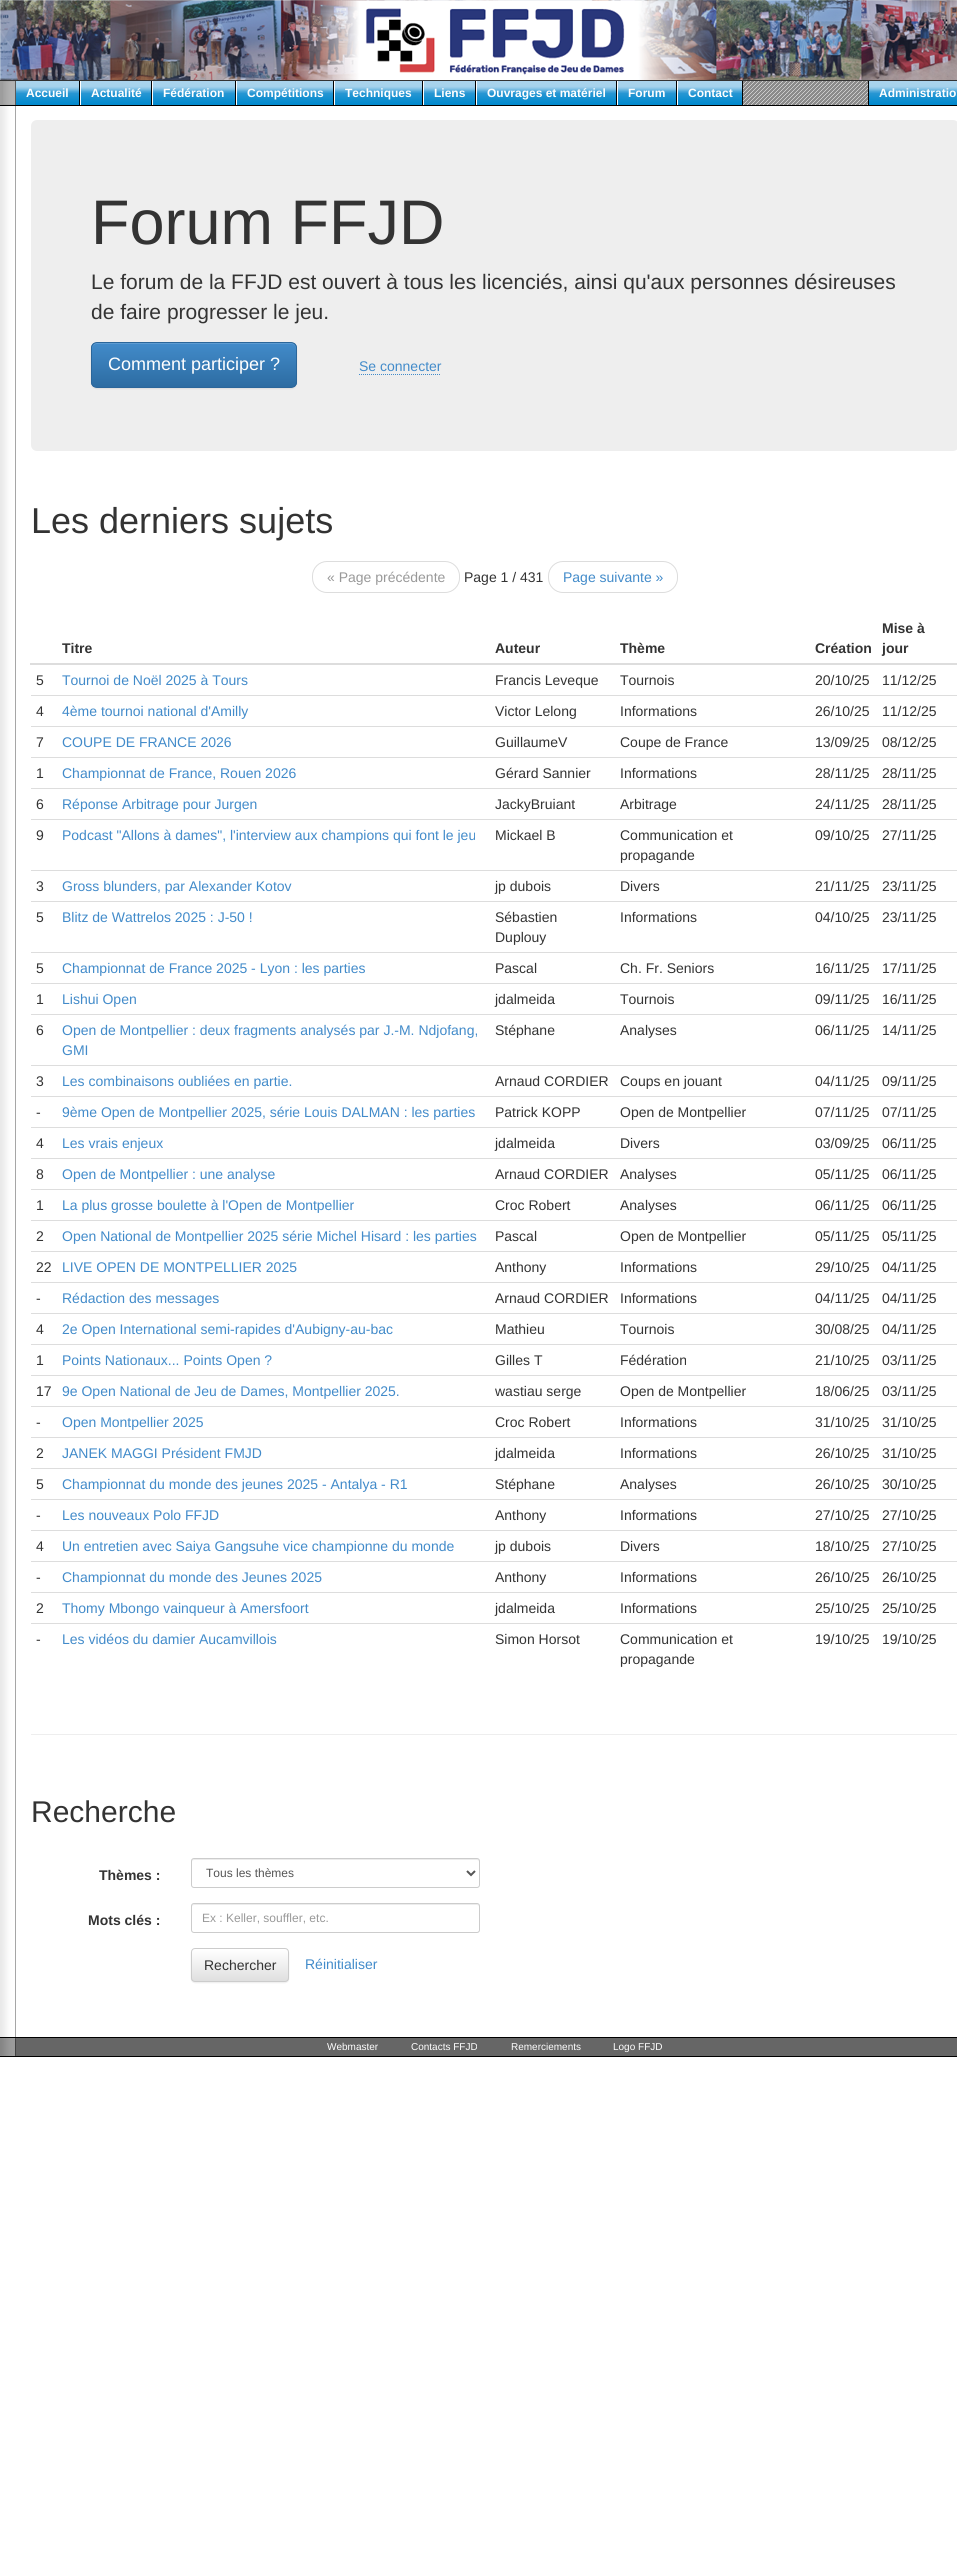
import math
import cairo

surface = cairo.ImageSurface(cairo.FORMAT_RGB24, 957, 2560)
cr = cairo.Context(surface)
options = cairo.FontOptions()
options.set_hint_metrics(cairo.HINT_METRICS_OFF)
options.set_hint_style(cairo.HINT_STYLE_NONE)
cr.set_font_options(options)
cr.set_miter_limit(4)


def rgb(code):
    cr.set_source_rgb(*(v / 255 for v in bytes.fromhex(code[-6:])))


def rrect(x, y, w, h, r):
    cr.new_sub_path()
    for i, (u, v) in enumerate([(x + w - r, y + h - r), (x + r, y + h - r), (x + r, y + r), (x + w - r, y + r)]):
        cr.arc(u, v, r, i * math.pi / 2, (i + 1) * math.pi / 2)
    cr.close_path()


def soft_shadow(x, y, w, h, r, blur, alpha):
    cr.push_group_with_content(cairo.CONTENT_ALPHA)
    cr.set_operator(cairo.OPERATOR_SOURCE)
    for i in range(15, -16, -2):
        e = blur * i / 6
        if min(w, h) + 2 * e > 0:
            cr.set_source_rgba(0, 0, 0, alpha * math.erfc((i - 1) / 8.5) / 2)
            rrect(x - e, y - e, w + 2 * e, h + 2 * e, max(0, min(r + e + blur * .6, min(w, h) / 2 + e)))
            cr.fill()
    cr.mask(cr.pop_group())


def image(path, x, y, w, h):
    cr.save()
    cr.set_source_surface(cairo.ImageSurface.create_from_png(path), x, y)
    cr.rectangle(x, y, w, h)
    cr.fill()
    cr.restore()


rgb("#ffffff")
cr.paint()
image("img/1.png", 0, 0, 957, 80)
rgb("#333333")
cr.rectangle(0, 80, 957, 1)
cr.fill()
image("img/2.png", 0, 0, 957, 80)
rgb("#9d9d9d")
cr.rectangle(0, 81, 3, 24)
cr.fill()
rgb("#000000")
cr.rectangle(0, 105, 957, 1)
cr.fill()
image("img/3.png", 3, 81, 865, 24)
image("img/4.png", 743, 81, 125, 24)
cr.rectangle(79, 81, 1, 24)
cr.fill()
rgb("#5a5a5a")
cr.rectangle(15, 81, 1, 24)
cr.fill()
image("img/5.png", 16, 81, 63, 24)
rgb("#000000")
cr.rectangle(151, 81, 1, 24)
cr.fill()
rgb("#ffffff")
cr.rectangle(80, 81, 1, 24)
cr.fill()
image("img/6.png", 81, 81, 70, 24)
rgb("#000000")
cr.rectangle(235, 81, 1, 24)
cr.fill()
rgb("#ffffff")
cr.rectangle(152, 81, 1, 24)
cr.fill()
image("img/7.png", 153, 81, 82, 24)
rgb("#000000")
cr.rectangle(333, 81, 1, 24)
cr.fill()
rgb("#ffffff")
cr.rectangle(236, 81, 1, 24)
cr.fill()
image("img/8.png", 237, 81, 96, 24)
rgb("#000000")
cr.rectangle(422, 81, 1, 24)
cr.fill()
rgb("#ffffff")
cr.rectangle(334, 81, 1, 24)
cr.fill()
image("img/9.png", 335, 81, 87, 24)
rgb("#000000")
cr.rectangle(475, 81, 1, 24)
cr.fill()
rgb("#ffffff")
cr.rectangle(423, 81, 1, 24)
cr.fill()
image("img/10.png", 424, 81, 51, 24)
rgb("#000000")
cr.rectangle(616, 81, 1, 24)
cr.fill()
rgb("#ffffff")
cr.rectangle(476, 81, 1, 24)
cr.fill()
image("img/11.png", 477, 81, 139, 24)
rgb("#000000")
cr.rectangle(676, 81, 1, 24)
cr.fill()
rgb("#ffffff")
cr.rectangle(617, 81, 1, 24)
cr.fill()
image("img/12.png", 618, 81, 58, 24)
rgb("#000000")
cr.rectangle(742, 81, 1, 24)
cr.fill()
rgb("#ffffff")
cr.rectangle(677, 81, 1, 24)
cr.fill()
image("img/13.png", 678, 81, 64, 24)
rgb("#000000")
cr.rectangle(868, 81, 1, 24)
cr.fill()
image("img/14.png", 869, 81, 88, 24)
image("img/15.png", 0, 106, 16, 1931)
rgb("#eeeeee")
rrect(31, 120, 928, 331, 6)
cr.fill()
rgb("#000000")
soft_shadow(91, 343, 206, 46, 6, 0.5, 0.07)
cr.save()
rrect(91, 342, 206, 46, 6)
cr.clip()
gradient = cairo.LinearGradient(194, 343, 194, 387)
gradient.add_color_stop_rgba(0, 0.259, 0.545, 0.792, 1)
gradient.add_color_stop_rgba(1, 0.176, 0.424, 0.635, 1)
cr.set_source(gradient)
cr.rectangle(91, 343, 206, 44)
cr.fill()
cr.restore()
rgb("#5e9cd2")
cr.new_path()
cr.move_to(97, 344)
cr.line_to(291, 344)
cr.curve_to(294, 344, 296, 346, 296, 349)
cr.line_to(296, 348)
cr.curve_to(296, 345, 294, 343, 291, 343)
cr.line_to(97, 343)
cr.curve_to(94, 343, 92, 345, 92, 348)
cr.line_to(92, 349)
cr.curve_to(92, 346, 94, 344, 97, 344)
cr.close_path()
cr.fill()
rrect(91.5, 342.5, 205, 45, 5.5)
rgb("#2b669a")
cr.set_line_width(1)
cr.stroke()
cr.new_path()
cr.move_to(359, 374.5)
cr.line_to(441, 374.5)
rgb("#428bca")
cr.set_dash([1, 1])
cr.stroke()
rrect(312.5, 561.5, 147, 31, 14.5)
rgb("#dddddd")
cr.set_dash([])
cr.stroke()
rrect(548.5, 561.5, 129, 31, 14.5)
cr.stroke()
for x, y, w, h, color in [
    (30, 663, 927, 2, "#dddddd"),
    (31, 695, 926, 1, "#dddddd"),
    (31, 726, 926, 1, "#dddddd"),
    (31, 757, 926, 1, "#dddddd"),
    (31, 788, 926, 1, "#dddddd"),
    (31, 819, 926, 1, "#dddddd"),
    (31, 870, 926, 1, "#dddddd"),
    (31, 901, 926, 1, "#dddddd"),
    (31, 952, 926, 1, "#dddddd"),
    (31, 983, 926, 1, "#dddddd"),
    (31, 1014, 926, 1, "#dddddd"),
    (31, 1065, 926, 1, "#dddddd"),
    (31, 1096, 926, 1, "#dddddd"),
    (31, 1127, 926, 1, "#dddddd"),
    (31, 1158, 926, 1, "#dddddd"),
    (31, 1189, 926, 1, "#dddddd"),
    (31, 1220, 926, 1, "#dddddd"),
    (31, 1251, 926, 1, "#dddddd"),
    (31, 1282, 926, 1, "#dddddd"),
    (31, 1313, 926, 1, "#dddddd"),
    (31, 1344, 926, 1, "#dddddd"),
    (31, 1375, 926, 1, "#dddddd"),
    (31, 1406, 926, 1, "#dddddd"),
    (31, 1437, 926, 1, "#dddddd"),
    (31, 1468, 926, 1, "#dddddd"),
    (31, 1499, 926, 1, "#dddddd"),
    (31, 1530, 926, 1, "#dddddd"),
    (31, 1561, 926, 1, "#dddddd"),
    (31, 1592, 926, 1, "#dddddd"),
    (31, 1623, 926, 1, "#dddddd"),
    (31, 1734, 926, 1, "#eeeeee"),
]:
    rgb(color)
    cr.rectangle(x, y, w, h)
    cr.fill()
rgb("#ececec")
cr.new_path()
cr.move_to(194, 1860)
cr.line_to(477, 1860)
cr.curve_to(478, 1860, 479, 1861, 479, 1862)
cr.curve_to(479, 1861, 479, 1859, 477, 1859)
cr.line_to(194, 1859)
cr.curve_to(192, 1859, 192, 1861, 192, 1862)
cr.curve_to(192, 1861, 193, 1860, 194, 1860)
cr.close_path()
cr.fill()
rrect(191.5, 1858.5, 288, 29, 2.5)
rgb("#cccccc")
cr.stroke()
cr.new_path()
cr.move_to(467, 1871)
cr.line_to(471, 1875)
cr.line_to(475, 1871)
rgb("#555555")
cr.set_line_width(2)
cr.stroke()
rgb("#ececec")
cr.new_path()
cr.move_to(194, 1905)
cr.line_to(477, 1905)
cr.curve_to(478, 1905, 479, 1906, 479, 1907)
cr.curve_to(479, 1906, 479, 1904, 477, 1904)
cr.line_to(194, 1904)
cr.curve_to(192, 1904, 192, 1906, 192, 1907)
cr.curve_to(192, 1906, 193, 1905, 194, 1905)
cr.close_path()
cr.fill()
rrect(191.5, 1903.5, 288, 29, 2.5)
rgb("#cccccc")
cr.set_line_width(1)
cr.stroke()
rgb("#000000")
soft_shadow(191, 1949, 98, 34, 4, 0.5, 0.07)
cr.save()
rrect(191, 1948, 98, 34, 4)
cr.clip()
gradient = cairo.LinearGradient(240, 1949, 240, 1981)
gradient.add_color_stop_rgba(0, 1, 1, 1, 1)
gradient.add_color_stop_rgba(1, 0.878, 0.878, 0.878, 1)
cr.set_source(gradient)
cr.rectangle(191, 1949, 98, 32)
cr.fill()
cr.restore()
rrect(191.5, 1948.5, 97, 33, 3.5)
rgb("#cccccc")
cr.stroke()
for x, y, w, h, color in [
    (0, 2037, 957, 1, "#000000"),
    (0, 2056, 957, 1, "#000000"),
    (16, 2038, 941, 18, "#666666"),
]:
    rgb(color)
    cr.rectangle(x, y, w, h)
    cr.fill()
image("img/16.png", 0, 2038, 16, 18)
cr.select_font_face("Liberation Sans", cairo.FONT_SLANT_NORMAL, cairo.FONT_WEIGHT_BOLD)
cr.set_font_size(12)
rgb("#ffffff")
for x, y, s in [
    (26, 97, "Accueil"),
    (91, 97, "Actualité"),
    (163, 97, "Fédération"),
    (247, 97, "Compétitions"),
    (345, 97, "Techniques"),
    (434, 97, "Liens"),
    (487, 97, "Ouvrages et matériel"),
    (628, 97, "Forum"),
    (688, 97, "Contact"),
    (879, 97, "Administratio"),
]:
    cr.move_to(x, y)
    cr.show_text(s)
cr.select_font_face("Liberation Sans")
cr.set_font_size(63)
rgb("#333333")
cr.move_to(91, 244)
cr.show_text("Forum FFJD")
cr.set_font_size(21)
cr.move_to(91, 289)
cr.show_text("Le forum de la FFJD est ouvert à tous les licenciés, ainsi qu'aux personnes désireuses")
cr.move_to(91, 319)
cr.show_text("de faire progresser le jeu.")
cr.set_font_size(18)
rgb("#ffffff")
cr.move_to(108, 370)
cr.show_text("Comment participer ?")
cr.set_font_size(14)
rgb("#428bca")
cr.move_to(359, 371)
cr.show_text("Se connecter")
cr.set_font_size(36)
rgb("#333333")
cr.move_to(31, 533)
cr.show_text("Les derniers sujets")
cr.set_font_size(14)
rgb("#999999")
cr.move_to(327, 582)
cr.show_text("« Page précédente")
rgb("#333333")
cr.move_to(464, 582)
cr.show_text("Page 1 / 431")
rgb("#428bca")
cr.move_to(563, 582)
cr.show_text("Page suivante »")
cr.select_font_face("Liberation Sans", cairo.FONT_SLANT_NORMAL, cairo.FONT_WEIGHT_BOLD)
rgb("#333333")
for x, y, s in [
    (62, 653, "Titre"),
    (495, 653, "Auteur"),
    (620, 653, "Thème"),
    (815, 653, "Création"),
    (882, 633, "Mise à"),
    (882, 653, "jour"),
]:
    cr.move_to(x, y)
    cr.show_text(s)
cr.select_font_face("Liberation Sans")
cr.move_to(36, 685)
cr.show_text("5")
rgb("#428bca")
cr.move_to(62, 685)
cr.show_text("Tournoi de Noël 2025 à Tours")
rgb("#333333")
for x, y, s in [
    (495, 685, "Francis Leveque"),
    (620, 685, "Tournois"),
    (815, 685, "20/10/25"),
    (882, 685, "11/12/25"),
    (36, 716, "4"),
]:
    cr.move_to(x, y)
    cr.show_text(s)
rgb("#428bca")
cr.move_to(62, 716)
cr.show_text("4ème tournoi national d'Amilly")
rgb("#333333")
for x, y, s in [
    (495, 716, "Victor Lelong"),
    (620, 716, "Informations"),
    (815, 716, "26/10/25"),
    (882, 716, "11/12/25"),
    (36, 747, "7"),
]:
    cr.move_to(x, y)
    cr.show_text(s)
rgb("#428bca")
cr.move_to(62, 747)
cr.show_text("COUPE DE FRANCE 2026")
rgb("#333333")
for x, y, s in [
    (495, 747, "GuillaumeV"),
    (620, 747, "Coupe de France"),
    (815, 747, "13/09/25"),
    (882, 747, "08/12/25"),
    (36, 778, "1"),
]:
    cr.move_to(x, y)
    cr.show_text(s)
rgb("#428bca")
cr.move_to(62, 778)
cr.show_text("Championnat de France, Rouen 2026")
rgb("#333333")
for x, y, s in [
    (495, 778, "Gérard Sannier"),
    (620, 778, "Informations"),
    (815, 778, "28/11/25"),
    (882, 778, "28/11/25"),
    (36, 809, "6"),
]:
    cr.move_to(x, y)
    cr.show_text(s)
rgb("#428bca")
cr.move_to(62, 809)
cr.show_text("Réponse Arbitrage pour Jurgen")
rgb("#333333")
for x, y, s in [
    (495, 809, "JackyBruiant"),
    (620, 809, "Arbitrage"),
    (815, 809, "24/11/25"),
    (882, 809, "28/11/25"),
    (36, 840, "9"),
]:
    cr.move_to(x, y)
    cr.show_text(s)
rgb("#428bca")
cr.move_to(62, 840)
cr.show_text("Podcast \"Allons à dames\", l'interview aux champions qui font le jeu")
rgb("#333333")
for x, y, s in [
    (495, 840, "Mickael B"),
    (620, 840, "Communication et"),
    (620, 860, "propagande"),
    (815, 840, "09/10/25"),
    (882, 840, "27/11/25"),
    (36, 891, "3"),
]:
    cr.move_to(x, y)
    cr.show_text(s)
rgb("#428bca")
cr.move_to(62, 891)
cr.show_text("Gross blunders, par Alexander Kotov")
rgb("#333333")
for x, y, s in [
    (495, 891, "jp dubois"),
    (620, 891, "Divers"),
    (815, 891, "21/11/25"),
    (882, 891, "23/11/25"),
    (36, 922, "5"),
]:
    cr.move_to(x, y)
    cr.show_text(s)
rgb("#428bca")
cr.move_to(62, 922)
cr.show_text("Blitz de Wattrelos 2025 : J-50 !")
rgb("#333333")
for x, y, s in [
    (495, 922, "Sébastien"),
    (495, 942, "Duplouy"),
    (620, 922, "Informations"),
    (815, 922, "04/10/25"),
    (882, 922, "23/11/25"),
    (36, 973, "5"),
]:
    cr.move_to(x, y)
    cr.show_text(s)
rgb("#428bca")
cr.move_to(62, 973)
cr.show_text("Championnat de France 2025 - Lyon : les parties")
rgb("#333333")
for x, y, s in [
    (495, 973, "Pascal"),
    (620, 973, "Ch. Fr. Seniors"),
    (815, 973, "16/11/25"),
    (882, 973, "17/11/25"),
    (36, 1004, "1"),
]:
    cr.move_to(x, y)
    cr.show_text(s)
rgb("#428bca")
cr.move_to(62, 1004)
cr.show_text("Lishui Open")
rgb("#333333")
for x, y, s in [
    (495, 1004, "jdalmeida"),
    (620, 1004, "Tournois"),
    (815, 1004, "09/11/25"),
    (882, 1004, "16/11/25"),
    (36, 1035, "6"),
]:
    cr.move_to(x, y)
    cr.show_text(s)
rgb("#428bca")
cr.move_to(62, 1035)
cr.show_text("Open de Montpellier : deux fragments analysés par J.-M. Ndjofang,")
cr.move_to(62, 1055)
cr.show_text("GMI")
rgb("#333333")
for x, y, s in [
    (495, 1035, "Stéphane"),
    (620, 1035, "Analyses"),
    (815, 1035, "06/11/25"),
    (882, 1035, "14/11/25"),
    (36, 1086, "3"),
]:
    cr.move_to(x, y)
    cr.show_text(s)
rgb("#428bca")
cr.move_to(62, 1086)
cr.show_text("Les combinaisons oubliées en partie.")
rgb("#333333")
for x, y, s in [
    (495, 1086, "Arnaud CORDIER"),
    (620, 1086, "Coups en jouant"),
    (815, 1086, "04/11/25"),
    (882, 1086, "09/11/25"),
    (36, 1117, "-"),
]:
    cr.move_to(x, y)
    cr.show_text(s)
rgb("#428bca")
cr.move_to(62, 1117)
cr.show_text("9ème Open de Montpellier 2025, série Louis DALMAN : les parties")
rgb("#333333")
for x, y, s in [
    (495, 1117, "Patrick KOPP"),
    (620, 1117, "Open de Montpellier"),
    (815, 1117, "07/11/25"),
    (882, 1117, "07/11/25"),
    (36, 1148, "4"),
]:
    cr.move_to(x, y)
    cr.show_text(s)
rgb("#428bca")
cr.move_to(62, 1148)
cr.show_text("Les vrais enjeux")
rgb("#333333")
for x, y, s in [
    (495, 1148, "jdalmeida"),
    (620, 1148, "Divers"),
    (815, 1148, "03/09/25"),
    (882, 1148, "06/11/25"),
    (36, 1179, "8"),
]:
    cr.move_to(x, y)
    cr.show_text(s)
rgb("#428bca")
cr.move_to(62, 1179)
cr.show_text("Open de Montpellier : une analyse")
rgb("#333333")
for x, y, s in [
    (495, 1179, "Arnaud CORDIER"),
    (620, 1179, "Analyses"),
    (815, 1179, "05/11/25"),
    (882, 1179, "06/11/25"),
    (36, 1210, "1"),
]:
    cr.move_to(x, y)
    cr.show_text(s)
rgb("#428bca")
cr.move_to(62, 1210)
cr.show_text("La plus grosse boulette à l'Open de Montpellier")
rgb("#333333")
for x, y, s in [
    (495, 1210, "Croc Robert"),
    (620, 1210, "Analyses"),
    (815, 1210, "06/11/25"),
    (882, 1210, "06/11/25"),
    (36, 1241, "2"),
]:
    cr.move_to(x, y)
    cr.show_text(s)
rgb("#428bca")
cr.move_to(62, 1241)
cr.show_text("Open National de Montpellier 2025 série Michel Hisard : les parties")
rgb("#333333")
for x, y, s in [
    (495, 1241, "Pascal"),
    (620, 1241, "Open de Montpellier"),
    (815, 1241, "05/11/25"),
    (882, 1241, "05/11/25"),
    (36, 1272, "22"),
]:
    cr.move_to(x, y)
    cr.show_text(s)
rgb("#428bca")
cr.move_to(62, 1272)
cr.show_text("LIVE OPEN DE MONTPELLIER 2025")
rgb("#333333")
for x, y, s in [
    (495, 1272, "Anthony"),
    (620, 1272, "Informations"),
    (815, 1272, "29/10/25"),
    (882, 1272, "04/11/25"),
    (36, 1303, "-"),
]:
    cr.move_to(x, y)
    cr.show_text(s)
rgb("#428bca")
cr.move_to(62, 1303)
cr.show_text("Rédaction des messages")
rgb("#333333")
for x, y, s in [
    (495, 1303, "Arnaud CORDIER"),
    (620, 1303, "Informations"),
    (815, 1303, "04/11/25"),
    (882, 1303, "04/11/25"),
    (36, 1334, "4"),
]:
    cr.move_to(x, y)
    cr.show_text(s)
rgb("#428bca")
cr.move_to(62, 1334)
cr.show_text("2e Open International semi-rapides d'Aubigny-au-bac")
rgb("#333333")
for x, y, s in [
    (495, 1334, "Mathieu"),
    (620, 1334, "Tournois"),
    (815, 1334, "30/08/25"),
    (882, 1334, "04/11/25"),
    (36, 1365, "1"),
]:
    cr.move_to(x, y)
    cr.show_text(s)
rgb("#428bca")
cr.move_to(62, 1365)
cr.show_text("Points Nationaux... Points Open ?")
rgb("#333333")
for x, y, s in [
    (495, 1365, "Gilles T"),
    (620, 1365, "Fédération"),
    (815, 1365, "21/10/25"),
    (882, 1365, "03/11/25"),
    (36, 1396, "17"),
]:
    cr.move_to(x, y)
    cr.show_text(s)
rgb("#428bca")
cr.move_to(62, 1396)
cr.show_text("9e Open National de Jeu de Dames, Montpellier 2025.")
rgb("#333333")
for x, y, s in [
    (495, 1396, "wastiau serge"),
    (620, 1396, "Open de Montpellier"),
    (815, 1396, "18/06/25"),
    (882, 1396, "03/11/25"),
    (36, 1427, "-"),
]:
    cr.move_to(x, y)
    cr.show_text(s)
rgb("#428bca")
cr.move_to(62, 1427)
cr.show_text("Open Montpellier 2025")
rgb("#333333")
for x, y, s in [
    (495, 1427, "Croc Robert"),
    (620, 1427, "Informations"),
    (815, 1427, "31/10/25"),
    (882, 1427, "31/10/25"),
    (36, 1458, "2"),
]:
    cr.move_to(x, y)
    cr.show_text(s)
rgb("#428bca")
cr.move_to(62, 1458)
cr.show_text("JANEK MAGGI Président FMJD")
rgb("#333333")
for x, y, s in [
    (495, 1458, "jdalmeida"),
    (620, 1458, "Informations"),
    (815, 1458, "26/10/25"),
    (882, 1458, "31/10/25"),
    (36, 1489, "5"),
]:
    cr.move_to(x, y)
    cr.show_text(s)
rgb("#428bca")
cr.move_to(62, 1489)
cr.show_text("Championnat du monde des jeunes 2025 - Antalya - R1")
rgb("#333333")
for x, y, s in [
    (495, 1489, "Stéphane"),
    (620, 1489, "Analyses"),
    (815, 1489, "26/10/25"),
    (882, 1489, "30/10/25"),
    (36, 1520, "-"),
]:
    cr.move_to(x, y)
    cr.show_text(s)
rgb("#428bca")
cr.move_to(62, 1520)
cr.show_text("Les nouveaux Polo FFJD")
rgb("#333333")
for x, y, s in [
    (495, 1520, "Anthony"),
    (620, 1520, "Informations"),
    (815, 1520, "27/10/25"),
    (882, 1520, "27/10/25"),
    (36, 1551, "4"),
]:
    cr.move_to(x, y)
    cr.show_text(s)
rgb("#428bca")
cr.move_to(62, 1551)
cr.show_text("Un entretien avec Saiya Gangsuhe vice championne du monde")
rgb("#333333")
for x, y, s in [
    (495, 1551, "jp dubois"),
    (620, 1551, "Divers"),
    (815, 1551, "18/10/25"),
    (882, 1551, "27/10/25"),
    (36, 1582, "-"),
]:
    cr.move_to(x, y)
    cr.show_text(s)
rgb("#428bca")
cr.move_to(62, 1582)
cr.show_text("Championnat du monde des Jeunes 2025")
rgb("#333333")
for x, y, s in [
    (495, 1582, "Anthony"),
    (620, 1582, "Informations"),
    (815, 1582, "26/10/25"),
    (882, 1582, "26/10/25"),
    (36, 1613, "2"),
]:
    cr.move_to(x, y)
    cr.show_text(s)
rgb("#428bca")
cr.move_to(62, 1613)
cr.show_text("Thomy Mbongo vainqueur à Amersfoort")
rgb("#333333")
for x, y, s in [
    (495, 1613, "jdalmeida"),
    (620, 1613, "Informations"),
    (815, 1613, "25/10/25"),
    (882, 1613, "25/10/25"),
    (36, 1644, "-"),
]:
    cr.move_to(x, y)
    cr.show_text(s)
rgb("#428bca")
cr.move_to(62, 1644)
cr.show_text("Les vidéos du damier Aucamvillois")
rgb("#333333")
for x, y, s in [
    (495, 1644, "Simon Horsot"),
    (620, 1644, "Communication et"),
    (620, 1664, "propagande"),
    (815, 1644, "19/10/25"),
    (882, 1644, "19/10/25"),
]:
    cr.move_to(x, y)
    cr.show_text(s)
cr.set_font_size(30)
cr.move_to(31, 1822)
cr.show_text("Recherche")
cr.select_font_face("Liberation Sans", cairo.FONT_SLANT_NORMAL, cairo.FONT_WEIGHT_BOLD)
cr.set_font_size(14)
cr.move_to(99, 1880)
cr.show_text("Thèmes :")
cr.select_font_face("Liberation Sans")
cr.set_font_size(12)
rgb("#555555")
cr.move_to(206, 1877)
cr.show_text("Tous les thèmes")
cr.select_font_face("Liberation Sans", cairo.FONT_SLANT_NORMAL, cairo.FONT_WEIGHT_BOLD)
cr.set_font_size(14)
rgb("#333333")
cr.move_to(88, 1925)
cr.show_text("Mots clés :")
cr.select_font_face("Liberation Sans")
cr.set_font_size(12)
rgb("#999999")
cr.move_to(202, 1922)
cr.show_text("Ex : Keller, souffler, etc.")
cr.set_font_size(14)
rgb("#333333")
cr.move_to(204, 1970)
cr.show_text("Rechercher")
rgb("#428bca")
cr.move_to(305, 1969)
cr.show_text("Réinitialiser")
cr.set_font_size(10)
rgb("#ffffff")
for x, y, s in [
    (327, 2050, "Webmaster"),
    (411, 2050, "Contacts FFJD"),
    (511, 2050, "Remerciements"),
    (613, 2050, "Logo FFJD"),
]:
    cr.move_to(x, y)
    cr.show_text(s)
surface.write_to_png("page.png")
